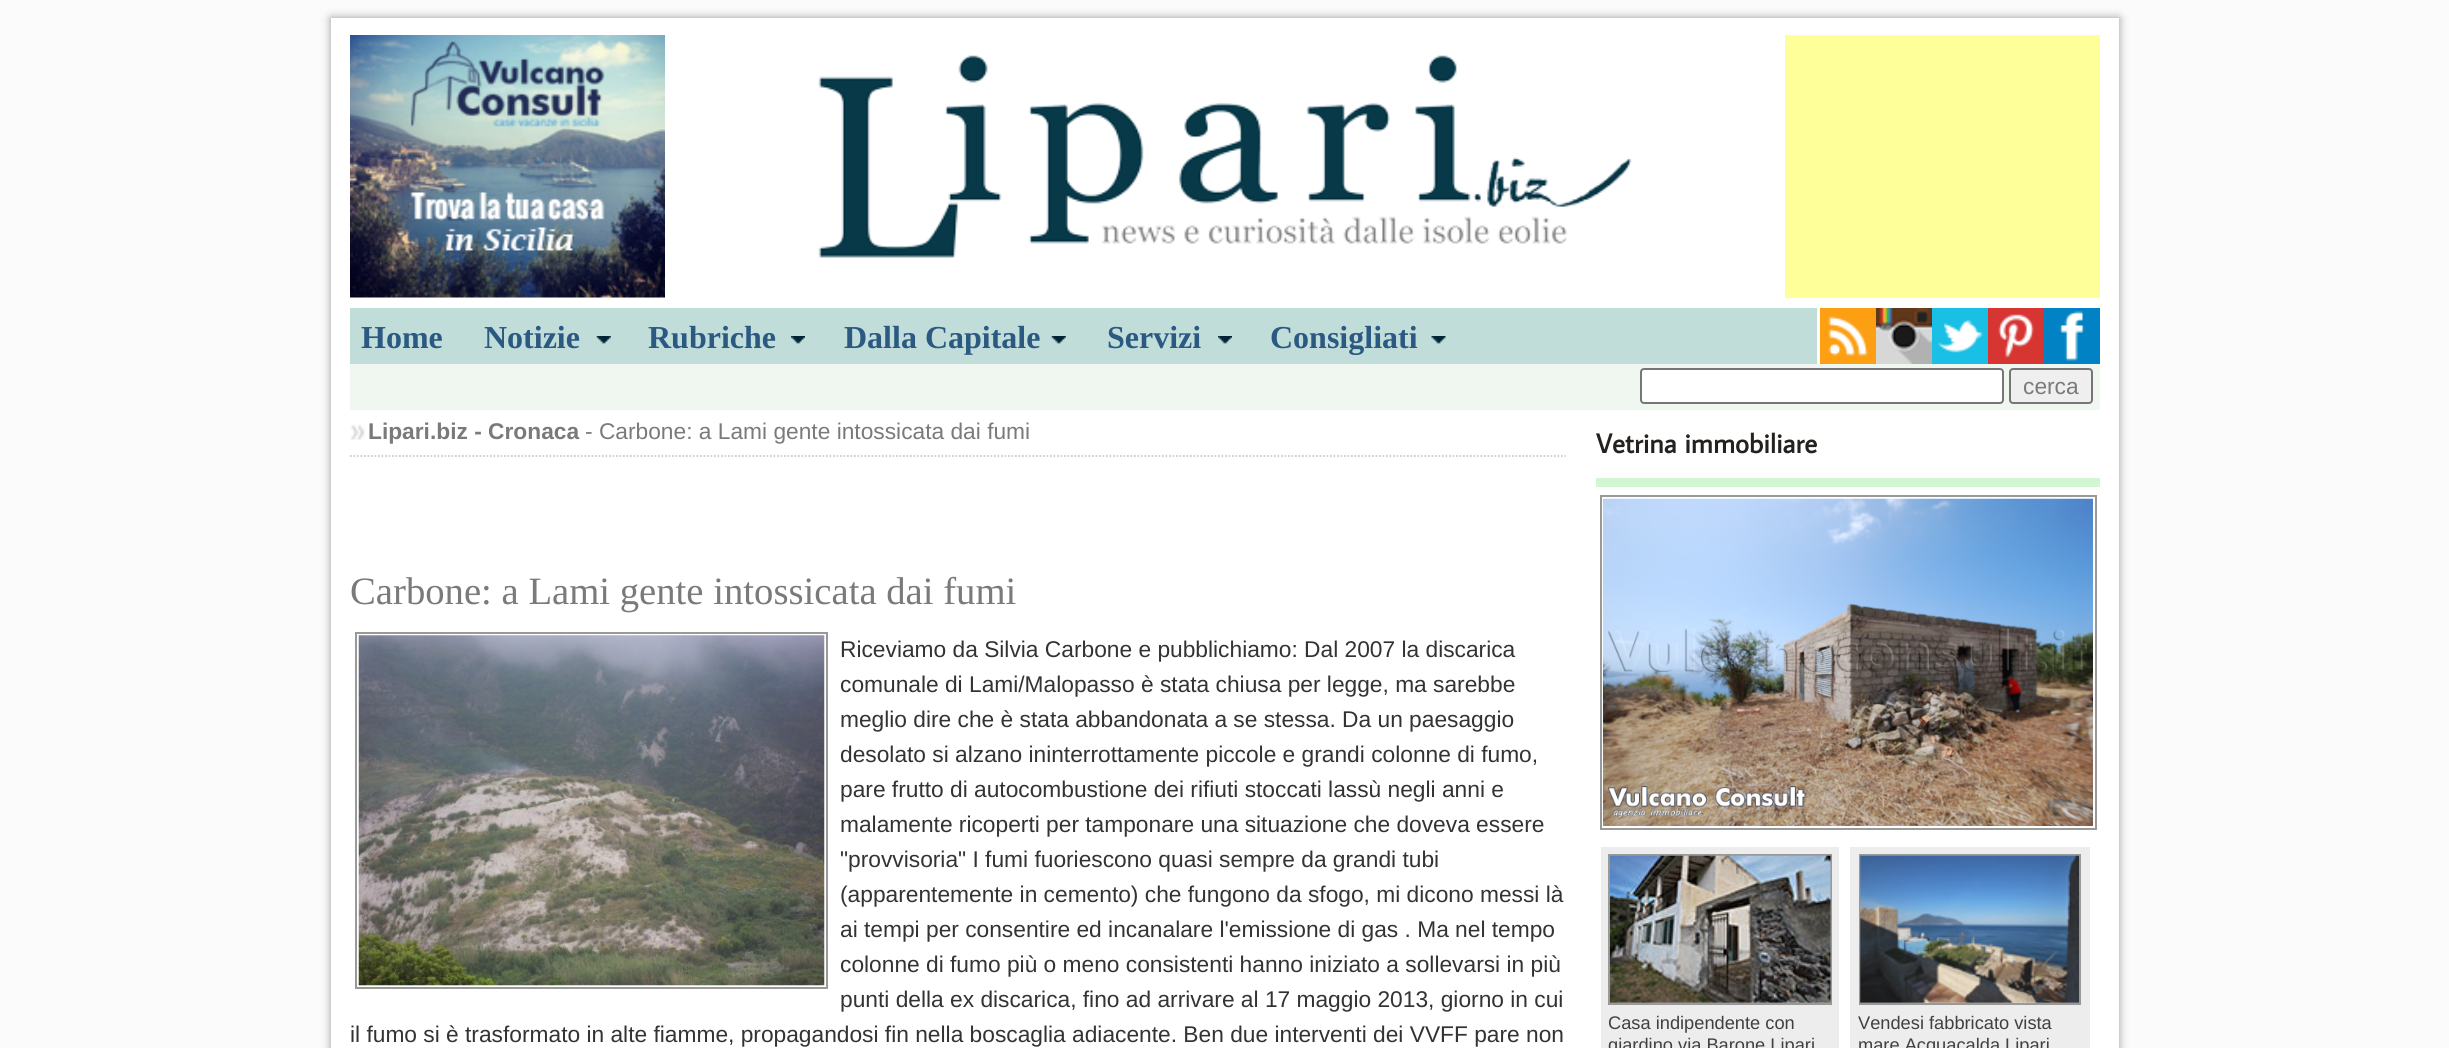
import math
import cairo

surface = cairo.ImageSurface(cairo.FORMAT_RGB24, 2449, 1048)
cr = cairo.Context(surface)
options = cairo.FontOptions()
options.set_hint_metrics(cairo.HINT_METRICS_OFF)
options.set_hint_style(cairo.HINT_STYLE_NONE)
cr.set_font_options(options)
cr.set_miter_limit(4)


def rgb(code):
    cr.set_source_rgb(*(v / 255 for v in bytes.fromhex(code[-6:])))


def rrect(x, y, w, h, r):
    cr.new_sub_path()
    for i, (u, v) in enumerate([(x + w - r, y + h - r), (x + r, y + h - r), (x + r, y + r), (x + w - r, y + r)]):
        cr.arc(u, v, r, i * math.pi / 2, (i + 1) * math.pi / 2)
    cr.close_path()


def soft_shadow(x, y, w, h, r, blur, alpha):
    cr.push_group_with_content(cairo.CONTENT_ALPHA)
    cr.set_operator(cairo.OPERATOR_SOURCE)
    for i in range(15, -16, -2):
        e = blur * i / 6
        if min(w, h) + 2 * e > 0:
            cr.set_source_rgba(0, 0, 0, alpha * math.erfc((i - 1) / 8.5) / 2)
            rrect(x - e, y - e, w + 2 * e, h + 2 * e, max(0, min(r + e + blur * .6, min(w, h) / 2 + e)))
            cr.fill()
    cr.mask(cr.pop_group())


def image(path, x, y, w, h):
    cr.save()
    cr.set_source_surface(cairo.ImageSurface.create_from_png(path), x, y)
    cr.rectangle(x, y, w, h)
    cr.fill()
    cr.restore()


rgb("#fbfbfb")
cr.paint()
rgb("#999999")
soft_shadow(331, 18, 1788, 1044, 0, 4.5, 1)
rgb("#ffffff")
cr.rectangle(331, 18, 1788, 1030)
cr.fill()
image("img/1.png", 350, 35, 315, 263)
image("img/2.png", 818, 55, 814, 203)
rgb("#ffff99")
cr.rectangle(1785, 35, 315, 263)
cr.fill()
rgb("#c0ddd9")
cr.rectangle(350, 308, 1467, 56)
cr.fill()
image("img/3.png", 596, 336, 15, 8)
image("img/4.png", 791, 336, 14, 8)
image("img/3.png", 1051, 336, 15, 8)
image("img/5.png", 1218, 336, 14, 8)
image("img/6.png", 1431, 336, 15, 8)
image("img/7.png", 1820, 308, 56, 56)
image("img/8.png", 1876, 308, 56, 56)
image("img/9.png", 1932, 308, 56, 56)
image("img/10.png", 1988, 308, 56, 56)
image("img/11.png", 2044, 308, 56, 56)
rgb("#f0f7f0")
cr.rectangle(350, 364, 1750, 46)
cr.fill()
rgb("#ffffff")
rrect(1641, 369, 362, 34, 3)
cr.fill_preserve()
rgb("#767676")
cr.stroke()
rgb("#efefef")
rrect(2010, 369, 82, 34, 3)
cr.fill_preserve()
rgb("#767676")
cr.stroke()
image("img/12.png", 350, 424, 16, 16)
cr.new_path()
cr.move_to(350, 456)
cr.line_to(1566, 456)
rgb("#cccccc")
cr.set_line_width(1.8)
cr.set_dash([1.75, 1.75])
cr.stroke()
cr.rectangle(356, 633, 471, 355)
rgb("#999999")
cr.set_line_width(2)
cr.set_dash([])
cr.stroke()
image("img/13.png", 358, 635, 467, 351)
rgb("#d1f6d1")
cr.rectangle(1596, 478, 504, 9)
cr.fill()
cr.rectangle(1601, 496, 495, 333)
rgb("#999999")
cr.stroke()
image("img/14.png", 1603, 498, 490, 328)
rgb("#ecedec")
cr.rectangle(1601, 847, 238, 201)
cr.fill()
cr.rectangle(1609, 855, 222, 149)
rgb("#999999")
cr.stroke()
image("img/15.png", 1610, 855, 221, 148)
rgb("#ecedec")
cr.rectangle(1850, 847, 240, 201)
cr.fill()
cr.rectangle(1860, 855, 220, 149)
rgb("#999999")
cr.stroke()
image("img/16.png", 1860, 855, 219, 148)
cr.select_font_face("Liberation Serif", cairo.FONT_SLANT_NORMAL, cairo.FONT_WEIGHT_BOLD)
cr.set_font_size(32)
rgb("#2b5981")
for x, y, s in [
    (361, 348, "Home"),
    (484, 348, "Notizie"),
    (648, 348, "Rubriche"),
    (844, 348, "Dalla Capitale"),
    (1107, 348, "Servizi"),
    (1270, 348, "Consigliati"),
]:
    cr.move_to(x, y)
    cr.show_text(s)
cr.select_font_face("Liberation Sans")
cr.set_font_size(22.75)
rgb("#7a7a7a")
cr.move_to(2023, 394)
cr.show_text("cerca")
cr.select_font_face("Liberation Sans", cairo.FONT_SLANT_NORMAL, cairo.FONT_WEIGHT_BOLD)
cr.move_to(368, 439)
cr.show_text("Lipari.biz - Cronaca")
cr.select_font_face("Liberation Sans")
cr.move_to(585, 439)
cr.show_text("- Carbone: a Lami gente intossicata dai fumi")
cr.select_font_face("Liberation Serif")
cr.set_font_size(38.7)
cr.move_to(350, 604)
cr.show_text("Carbone: a Lami gente intossicata dai fumi")
cr.select_font_face("Liberation Sans")
cr.set_font_size(22.75)
rgb("#333333")
for x, y, s in [
    (840, 657, "Riceviamo da Silvia Carbone e pubblichiamo: Dal 2007 la discarica"),
    (840, 692, "comunale di Lami/Malopasso è stata chiusa per legge, ma sarebbe"),
    (840, 727, "meglio dire che è stata abbandonata a se stessa. Da un paesaggio"),
    (840, 762, "desolato si alzano ininterrottamente piccole e grandi colonne di fumo,"),
    (840, 797, "pare frutto di autocombustione dei rifiuti stoccati lassù negli anni e"),
    (840, 832, "malamente ricoperti per tamponare una situazione che doveva essere"),
    (840, 867, "\"provvisoria\" I fumi fuoriescono quasi sempre da grandi tubi"),
    (840, 902, "(apparentemente in cemento) che fungono da sfogo, mi dicono messi là"),
    (840, 937, "ai tempi per consentire ed incanalare l'emissione di gas . Ma nel tempo"),
    (840, 972, "colonne di fumo più o meno consistenti hanno iniziato a sollevarsi in più"),
    (840, 1007, "punti della ex discarica, fino ad arrivare al 17 maggio 2013, giorno in cui"),
    (350, 1042, "il fumo si è trasformato in alte fiamme, propagandosi fin nella boscaglia adiacente. Ben due interventi dei VVFF pare non"),
]:
    cr.move_to(x, y)
    cr.show_text(s)
cr.select_font_face("Average Sans", cairo.FONT_SLANT_NORMAL, cairo.FONT_WEIGHT_BOLD)
cr.set_font_size(27.25)
rgb("#24211e")
cr.move_to(1596, 453)
cr.show_text("Vetrina immobiliare")
cr.select_font_face("Liberation Sans")
cr.set_font_size(18.25)
rgb("#404040")
for x, y, s in [
    (1608, 1029, "Casa indipendente con"),
    (1608, 1051, "giardino via Barone Lipari"),
    (1858, 1029, "Vendesi fabbricato vista"),
    (1858, 1051, "mare Acquacalda Lipari"),
]:
    cr.move_to(x, y)
    cr.show_text(s)
surface.write_to_png("page.png")
